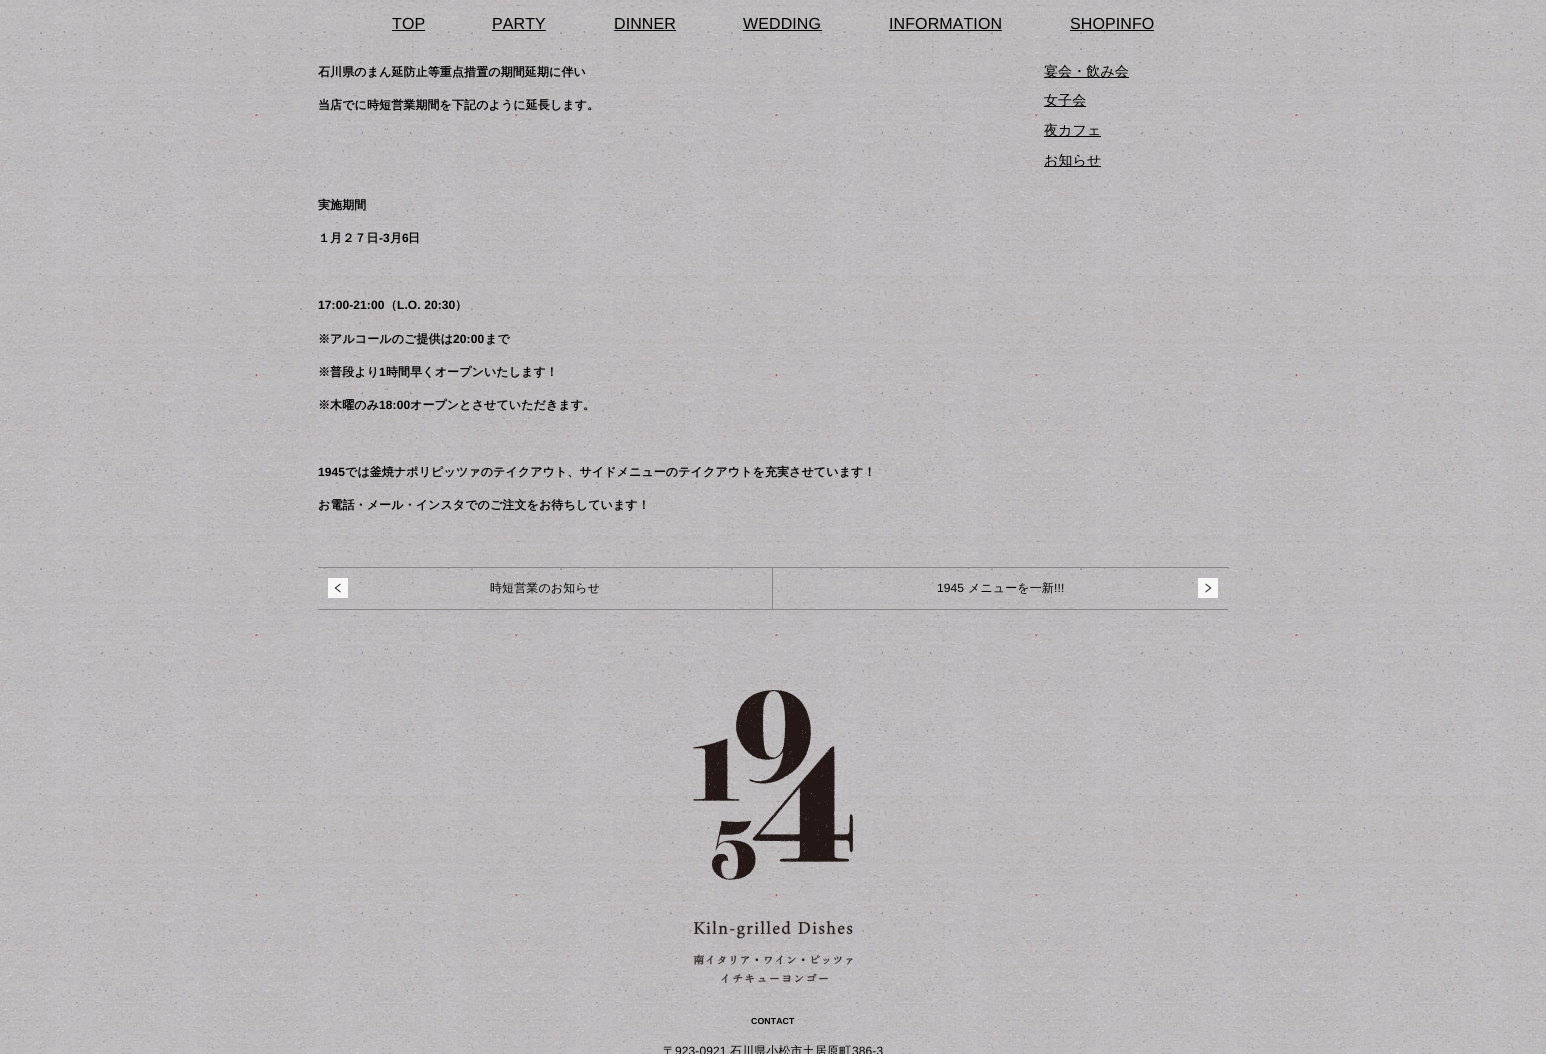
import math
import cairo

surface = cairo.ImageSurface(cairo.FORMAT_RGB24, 1546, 1054)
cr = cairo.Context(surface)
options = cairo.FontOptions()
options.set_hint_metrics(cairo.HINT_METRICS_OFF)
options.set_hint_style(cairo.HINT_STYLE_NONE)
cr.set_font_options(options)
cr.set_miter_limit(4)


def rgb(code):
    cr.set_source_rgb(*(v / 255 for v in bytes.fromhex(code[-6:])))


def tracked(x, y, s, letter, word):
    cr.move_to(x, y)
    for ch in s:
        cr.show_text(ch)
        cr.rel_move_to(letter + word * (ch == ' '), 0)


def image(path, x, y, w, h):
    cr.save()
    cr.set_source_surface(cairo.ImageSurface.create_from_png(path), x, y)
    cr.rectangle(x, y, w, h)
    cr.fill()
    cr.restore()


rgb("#ffffff")
cr.paint()
image("img/1.png", 0, 48, 1546, 1006)
image("img/2.png", 0, 0, 1546, 48)
for x, y, w, h, color in [
    (392, 30, 33, 1, "#000000"),
    (492, 30, 54, 1, "#000000"),
    (614, 30, 62, 1, "#000000"),
    (743, 30, 79, 1, "#000000"),
    (889, 30, 113, 1, "#000000"),
    (1070, 30, 84, 1, "#000000"),
    (1044, 77, 85, 1, "#000000"),
    (1044, 106, 42, 1, "#000000"),
    (1044, 136, 57, 1, "#000000"),
    (1044, 166, 57, 1, "#000000"),
    (318, 567, 910, 1, "#868485"),
    (318, 609, 910, 1, "#868485"),
]:
    rgb(color)
    cr.rectangle(x, y, w, h)
    cr.fill()
image("img/3.png", 328, 578, 20, 20)
cr.rectangle(772, 568, 1, 41)
cr.fill()
image("img/4.png", 1198, 578, 20, 20)
image("img/5.png", 693, 690, 160, 293)
cr.select_font_face("Liberation Sans")
cr.set_font_size(16)
rgb("#000000")
for x, y, s in [
    (392, 29, "TOP"),
    (492, 29, "PARTY"),
    (614, 29, "DINNER"),
    (743, 29, "WEDDING"),
    (889, 29, "INFORMATION"),
    (1070, 29, "SHOPINFO"),
]:
    tracked(x, y, s, 0.1, 0)
cr.select_font_face("WenQuanYi Zen Hei", cairo.FONT_SLANT_NORMAL, cairo.FONT_WEIGHT_BOLD)
cr.set_font_size(12)
for x, y, s in [
    (318, 76, "石川県のまん延防止等重点措置の期間延期に伴い"),
    (318, 109, "当店でに時短営業期間を下記のように延長します。"),
    (318, 209, "実施期間"),
    (318, 242, "１月２７日"),
]:
    tracked(x, y, s, 0.1, 0)
cr.select_font_face("Liberation Sans", cairo.FONT_SLANT_NORMAL, cairo.FONT_WEIGHT_BOLD)
tracked(379, 242, "-3", 0.1, 0)
cr.select_font_face("WenQuanYi Zen Hei", cairo.FONT_SLANT_NORMAL, cairo.FONT_WEIGHT_BOLD)
tracked(390, 242, "月", 0.1, 0)
cr.select_font_face("Liberation Sans", cairo.FONT_SLANT_NORMAL, cairo.FONT_WEIGHT_BOLD)
tracked(402, 242, "6", 0.1, 0)
cr.select_font_face("WenQuanYi Zen Hei", cairo.FONT_SLANT_NORMAL, cairo.FONT_WEIGHT_BOLD)
tracked(408, 242, "日", 0.1, 0)
cr.select_font_face("Liberation Sans", cairo.FONT_SLANT_NORMAL, cairo.FONT_WEIGHT_BOLD)
tracked(318, 309, "17:00-21:00", 0.1, 0)
cr.select_font_face("WenQuanYi Zen Hei", cairo.FONT_SLANT_NORMAL, cairo.FONT_WEIGHT_BOLD)
tracked(385, 309, "（", 0.1, 0)
cr.select_font_face("Liberation Sans", cairo.FONT_SLANT_NORMAL, cairo.FONT_WEIGHT_BOLD)
tracked(397, 309, "L.O. 20:30", 0.1, 0)
cr.select_font_face("WenQuanYi Zen Hei", cairo.FONT_SLANT_NORMAL, cairo.FONT_WEIGHT_BOLD)
tracked(455, 309, "）", 0.1, 0)
tracked(318, 343, "※アルコールのご提供は", 0.1, 0)
cr.select_font_face("Liberation Sans", cairo.FONT_SLANT_NORMAL, cairo.FONT_WEIGHT_BOLD)
tracked(453, 343, "20:00", 0.1, 0)
cr.select_font_face("WenQuanYi Zen Hei", cairo.FONT_SLANT_NORMAL, cairo.FONT_WEIGHT_BOLD)
tracked(485, 343, "まで", 0.1, 0)
tracked(318, 376, "※普段より", 0.1, 0)
cr.select_font_face("Liberation Sans", cairo.FONT_SLANT_NORMAL, cairo.FONT_WEIGHT_BOLD)
tracked(379, 376, "1", 0.1, 0)
cr.select_font_face("WenQuanYi Zen Hei", cairo.FONT_SLANT_NORMAL, cairo.FONT_WEIGHT_BOLD)
tracked(386, 376, "時間早くオープンいたします！", 0.1, 0)
tracked(318, 409, "※木曜のみ", 0.1, 0)
cr.select_font_face("Liberation Sans", cairo.FONT_SLANT_NORMAL, cairo.FONT_WEIGHT_BOLD)
tracked(379, 409, "18:00", 0.1, 0)
cr.select_font_face("WenQuanYi Zen Hei", cairo.FONT_SLANT_NORMAL, cairo.FONT_WEIGHT_BOLD)
tracked(410, 409, "オープンとさせていただきます。", 0.1, 0)
cr.select_font_face("Liberation Sans", cairo.FONT_SLANT_NORMAL, cairo.FONT_WEIGHT_BOLD)
tracked(318, 476, "1945", 0.1, 0)
cr.select_font_face("WenQuanYi Zen Hei", cairo.FONT_SLANT_NORMAL, cairo.FONT_WEIGHT_BOLD)
tracked(345, 476, "では釜焼ナポリピッツァのテイクアウト、サイドメニューのテイクアウトを充実させています！", 0.1, 0)
tracked(318, 509, "お電話・メール・インスタでのご注文をお待ちしています！", 0.1, 0)
cr.select_font_face("WenQuanYi Zen Hei Medium")
cr.set_font_size(14)
for x, y, s in [
    (1044, 76, "宴会・飲み会"),
    (1044, 105, "女子会"),
    (1044, 135, "夜カフェ"),
    (1044, 165, "お知らせ"),
]:
    tracked(x, y, s, 0.1, 0)
cr.set_font_size(12)
tracked(490, 592, "時短営業のお知らせ", 0.1, 0)
cr.select_font_face("Liberation Sans")
tracked(937, 592, "1945", 0.1, 0)
cr.select_font_face("WenQuanYi Zen Hei Medium")
tracked(968, 592, "メニューを一新", 0.1, 0)
cr.select_font_face("Liberation Sans")
tracked(1054, 592, "!!!", 0.1, 0)
cr.select_font_face("Liberation Sans", cairo.FONT_SLANT_NORMAL, cairo.FONT_WEIGHT_BOLD)
cr.set_font_size(8.75)
tracked(751, 1024, "CONTACT", 0.1, 0)
cr.select_font_face("WenQuanYi Zen Hei Medium")
cr.set_font_size(12)
tracked(663, 1055, "〒", 0.1, 0)
cr.select_font_face("Liberation Sans")
tracked(675, 1055, "923-0921", 0.1, 0)
cr.select_font_face("WenQuanYi Zen Hei Medium")
tracked(730, 1055, "石川県小松市土居原町", 0.1, 0)
cr.select_font_face("Liberation Sans")
tracked(852, 1055, "386-3", 0.1, 0)
surface.write_to_png("page.png")
